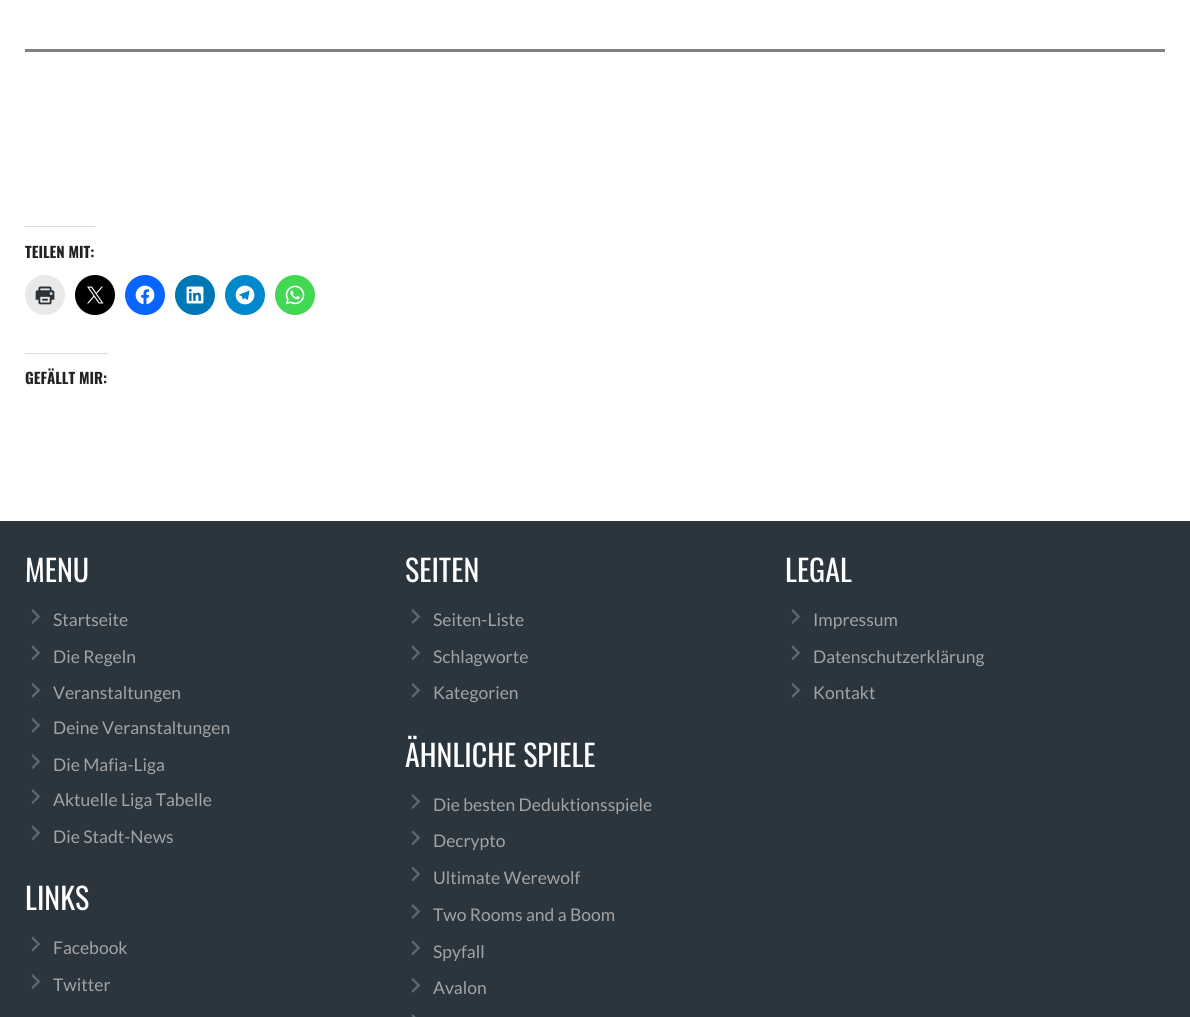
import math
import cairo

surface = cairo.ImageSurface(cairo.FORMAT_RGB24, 1190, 1017)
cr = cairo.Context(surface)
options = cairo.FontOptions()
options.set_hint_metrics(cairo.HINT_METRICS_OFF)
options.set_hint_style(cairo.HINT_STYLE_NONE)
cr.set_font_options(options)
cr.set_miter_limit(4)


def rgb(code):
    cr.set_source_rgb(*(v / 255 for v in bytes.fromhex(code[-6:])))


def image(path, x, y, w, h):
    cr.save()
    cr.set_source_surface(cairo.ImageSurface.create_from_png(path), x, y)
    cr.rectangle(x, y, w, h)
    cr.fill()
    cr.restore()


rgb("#ffffff")
cr.paint()
rgb("#808080")
cr.rectangle(25, 49, 1140, 3)
cr.fill()
rgb("#dcdcde")
cr.rectangle(25, 226, 70, 1)
cr.fill()
rgb("#e9e9e9")
cr.arc(45, 295, 20, 0, 2 * math.pi)
cr.fill()
image("img/1.png", 35, 286, 20, 19)
rgb("#000000")
cr.arc(95, 295, 20, 0, 2 * math.pi)
cr.fill()
image("img/2.png", 87, 286, 17, 18)
rgb("#0866ff")
cr.arc(145, 295, 20, 0, 2 * math.pi)
cr.fill()
image("img/3.png", 135, 285, 20, 20)
rgb("#0077b5")
cr.arc(195, 295, 20, 0, 2 * math.pi)
cr.fill()
image("img/4.png", 186, 286, 18, 18)
rgb("#0088cc")
cr.arc(245, 295, 20, 0, 2 * math.pi)
cr.fill()
image("img/5.png", 235, 285, 20, 20)
rgb("#43d854")
cr.arc(295, 295, 20, 0, 2 * math.pi)
cr.fill()
image("img/6.png", 285, 285, 20, 20)
rgb("#dcdcde")
cr.rectangle(25, 353, 83, 1)
cr.fill()
rgb("#2b353e")
cr.rectangle(0, 521, 1190, 496)
cr.fill()
image("img/7.png", 31, 609, 10, 15)
image("img/8.png", 31, 645, 9, 16)
image("img/9.png", 31, 683, 10, 15)
image("img/9.png", 31, 718, 10, 15)
image("img/7.png", 31, 754, 10, 15)
image("img/7.png", 31, 789, 10, 15)
image("img/8.png", 31, 825, 9, 16)
image("img/10.png", 31, 936, 9, 16)
image("img/7.png", 31, 974, 10, 15)
image("img/7.png", 411, 609, 10, 15)
image("img/8.png", 411, 645, 9, 16)
image("img/9.png", 411, 683, 10, 15)
image("img/7.png", 411, 794, 10, 15)
image("img/8.png", 411, 830, 9, 16)
image("img/10.png", 411, 866, 9, 16)
image("img/7.png", 411, 904, 10, 15)
image("img/8.png", 411, 940, 9, 16)
image("img/9.png", 411, 978, 10, 15)
image("img/11.png", 411, 1014, 5, 3)
image("img/7.png", 791, 609, 10, 15)
image("img/8.png", 791, 645, 9, 16)
image("img/9.png", 791, 683, 10, 15)
cr.select_font_face("Oswald", cairo.FONT_SLANT_NORMAL, cairo.FONT_WEIGHT_BOLD)
cr.set_font_size(15)
rgb("#222222")
cr.move_to(25, 258)
cr.show_text("TEILEN MIT:")
cr.move_to(25, 384)
cr.show_text("GEFÄLLT MIR:")
cr.select_font_face("Oswald")
cr.set_font_size(30)
rgb("#ffffff")
cr.move_to(25, 582)
cr.show_text("MENU")
cr.select_font_face("Lato")
cr.set_font_size(17.5)
rgb("#a3a3a3")
for x, y, s in [
    (53, 626, "Startseite"),
    (53, 663, "Die Regeln"),
    (53, 699, "Veranstaltungen"),
    (53, 734, "Deine Veranstaltungen"),
    (53, 771, "Die Mafia-Liga"),
    (53, 806, "Aktuelle Liga Tabelle"),
    (53, 843, "Die Stadt-News"),
]:
    cr.move_to(x, y)
    cr.show_text(s)
cr.select_font_face("Oswald")
cr.set_font_size(30)
rgb("#ffffff")
cr.move_to(25, 910)
cr.show_text("LINKS")
cr.select_font_face("Lato")
cr.set_font_size(17.5)
rgb("#a3a3a3")
cr.move_to(53, 954)
cr.show_text("Facebook")
cr.move_to(53, 991)
cr.show_text("Twitter")
cr.select_font_face("Oswald")
cr.set_font_size(30)
rgb("#ffffff")
cr.move_to(405, 582)
cr.show_text("SEITEN")
cr.select_font_face("Lato")
cr.set_font_size(17.5)
rgb("#a3a3a3")
for x, y, s in [
    (433, 626, "Seiten-Liste"),
    (433, 663, "Schlagworte"),
    (433, 699, "Kategorien"),
]:
    cr.move_to(x, y)
    cr.show_text(s)
cr.select_font_face("Oswald")
cr.set_font_size(30)
rgb("#ffffff")
cr.move_to(405, 767)
cr.show_text("ÄHNLICHE SPIELE")
cr.select_font_face("Lato")
cr.set_font_size(17.5)
rgb("#a3a3a3")
for x, y, s in [
    (433, 811, "Die besten Deduktionsspiele"),
    (433, 847, "Decrypto"),
    (433, 884, "Ultimate Werewolf"),
    (433, 921, "Two Rooms and a Boom"),
    (433, 958, "Spyfall"),
    (433, 994, "Avalon"),
]:
    cr.move_to(x, y)
    cr.show_text(s)
cr.select_font_face("Oswald")
cr.set_font_size(30)
rgb("#ffffff")
cr.move_to(785, 582)
cr.show_text("LEGAL")
cr.select_font_face("Lato")
cr.set_font_size(17.5)
rgb("#a3a3a3")
for x, y, s in [
    (813, 626, "Impressum"),
    (813, 663, "Datenschutzerklärung"),
    (813, 699, "Kontakt"),
]:
    cr.move_to(x, y)
    cr.show_text(s)
surface.write_to_png("page.png")
